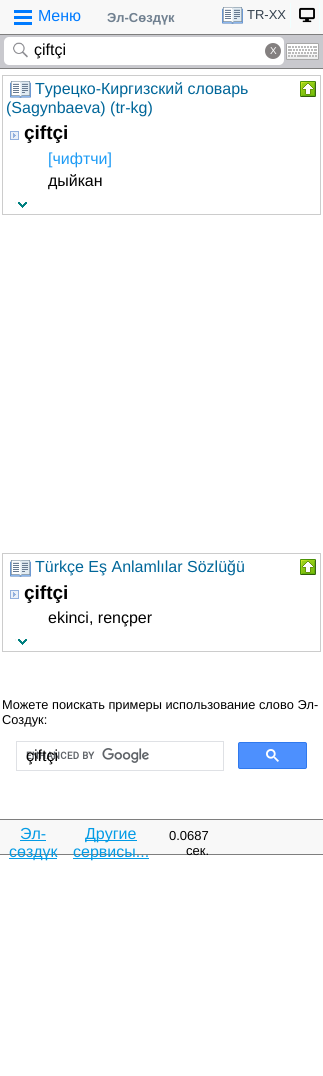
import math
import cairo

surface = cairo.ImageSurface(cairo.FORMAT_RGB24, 323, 1076)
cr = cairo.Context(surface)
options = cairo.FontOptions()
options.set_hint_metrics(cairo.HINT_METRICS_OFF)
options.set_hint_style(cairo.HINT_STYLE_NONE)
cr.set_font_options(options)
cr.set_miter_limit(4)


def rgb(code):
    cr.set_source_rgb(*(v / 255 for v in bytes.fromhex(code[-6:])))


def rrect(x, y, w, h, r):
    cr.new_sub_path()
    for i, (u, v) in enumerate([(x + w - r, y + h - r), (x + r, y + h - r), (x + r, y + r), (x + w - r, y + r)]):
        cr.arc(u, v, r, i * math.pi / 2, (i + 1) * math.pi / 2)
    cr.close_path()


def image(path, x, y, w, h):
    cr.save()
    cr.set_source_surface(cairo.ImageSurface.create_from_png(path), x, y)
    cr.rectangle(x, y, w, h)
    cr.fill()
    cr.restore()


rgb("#ffffff")
cr.paint()
for x, y, w, h, color in [
    (0, 0, 323, 34, "#f8f8f8"),
    (0, 34, 323, 1, "#7e7e7e"),
    (14, 10, 18, 3, "#007bff"),
    (14, 16, 18, 3, "#007bff"),
    (14, 22, 18, 3, "#007bff"),
    (290, 3, 1, 25, "#f0ffff"),
]:
    rgb(color)
    cr.rectangle(x, y, w, h)
    cr.fill()
image("img/1.png", 222, 7, 21, 17)
cr.rectangle(319, 3, 1, 28)
cr.fill()
image("img/2.png", 299, 7, 16, 16)
rgb("#c9c9ce")
cr.rectangle(0, 35, 323, 33)
cr.fill()
rgb("#7e7e7e")
cr.rectangle(0, 68, 323, 1)
cr.fill()
rgb("#ffffff")
rrect(4, 37, 280, 28, 5)
cr.fill()
image("img/3.png", 13, 42, 15, 16)
rgb("#848080")
cr.arc(273, 51, 8, 0, 2 * math.pi)
cr.fill()
image("img/4.png", 286, 43, 33, 17)
cr.rectangle(2.5, 75.5, 318, 139)
rgb("#cccccc")
cr.set_line_width(1)
cr.stroke()
image("img/5.png", 10, 81, 21, 17)
image("img/6.png", 300, 81, 16, 16)
image("img/7.png", 10, 131, 9, 9)
image("img/8.png", 15, 202, 12, 6)
cr.rectangle(2.5, 553.5, 318, 98)
cr.stroke()
image("img/5.png", 10, 560, 21, 17)
image("img/6.png", 300, 559, 16, 16)
image("img/7.png", 10, 590, 9, 9)
image("img/8.png", 15, 639, 12, 6)
cr.rectangle(16.5, 741.5, 207, 29)
rgb("#dfe1e5")
cr.stroke()
image("img/9.png", 26, 748, 123, 15)
rgb("#4d90fe")
rrect(238.5, 742.5, 68, 26, 1.5)
cr.fill_preserve()
rgb("#3079ed")
cr.stroke()
image("img/10.png", 266, 749, 13, 13)
for x, y, w, h, color in [
    (0, 820, 323, 34, "#f8f8f8"),
    (0, 819, 323, 1, "#7e7e7e"),
    (0, 854, 323, 1, "#7e7e7e"),
    (20, 840, 26, 1, "#039be5"),
    (9, 858, 48, 1, "#039be5"),
    (85, 840, 52, 1, "#039be5"),
    (73, 858, 76, 1, "#039be5"),
]:
    rgb(color)
    cr.rectangle(x, y, w, h)
    cr.fill()
cr.select_font_face("Liberation Sans")
cr.set_font_size(16)
rgb("#007bff")
cr.move_to(38, 21)
cr.show_text("Меню")
cr.select_font_face("Liberation Sans", cairo.FONT_SLANT_NORMAL, cairo.FONT_WEIGHT_BOLD)
cr.set_font_size(13)
rgb("#708090")
cr.move_to(107, 22)
cr.show_text("Эл-Сөздүк")
cr.select_font_face("Liberation Sans")
rgb("#33404d")
cr.move_to(247, 19)
cr.show_text("TR-XX")
cr.set_font_size(16)
rgb("#000000")
cr.move_to(34, 55)
cr.show_text("çiftçi")
cr.set_font_size(10)
rgb("#ffffff")
cr.move_to(270, 54)
cr.show_text("X")
cr.set_font_size(16)
rgb("#006699")
cr.move_to(35, 94)
cr.show_text("Турецко-Киргизский словарь")
cr.move_to(6, 113)
cr.show_text("(Sagynbaeva) (tr-kg)")
cr.select_font_face("Liberation Sans", cairo.FONT_SLANT_NORMAL, cairo.FONT_WEIGHT_BOLD)
cr.set_font_size(19)
rgb("#000000")
cr.move_to(24, 139)
cr.show_text("çiftçi")
cr.select_font_face("Liberation Sans")
cr.set_font_size(16)
rgb("#1d9bf5")
cr.move_to(48, 164)
cr.show_text("[чифтчи]")
rgb("#000000")
cr.move_to(48, 186)
cr.show_text("дыйкан")
rgb("#006699")
cr.move_to(35, 572)
cr.show_text("Türkçe Eş Anlamlılar Sözlüğü")
cr.select_font_face("Liberation Sans", cairo.FONT_SLANT_NORMAL, cairo.FONT_WEIGHT_BOLD)
cr.set_font_size(19)
rgb("#000000")
cr.move_to(24, 599)
cr.show_text("çiftçi")
cr.select_font_face("Liberation Sans")
cr.set_font_size(16)
cr.move_to(48, 623)
cr.show_text("ekinci, rençper")
cr.set_font_size(12.8)
cr.move_to(2, 709)
cr.show_text("Можете поискать примеры использование слово Эл-")
cr.move_to(2, 724)
cr.show_text("Создук:")
cr.set_font_size(16)
cr.move_to(26, 761)
cr.show_text("çiftçi")
rgb("#039be5")
for x, y, s in [
    (20, 839, "Эл-"),
    (9, 857, "сөздүк"),
    (85, 839, "Другие"),
    (73, 857, "сервисы..."),
]:
    cr.move_to(x, y)
    cr.show_text(s)
cr.set_font_size(13)
rgb("#000000")
cr.move_to(169, 840)
cr.show_text("0.0687")
cr.move_to(186, 855)
cr.show_text("сек.")
surface.write_to_png("page.png")
